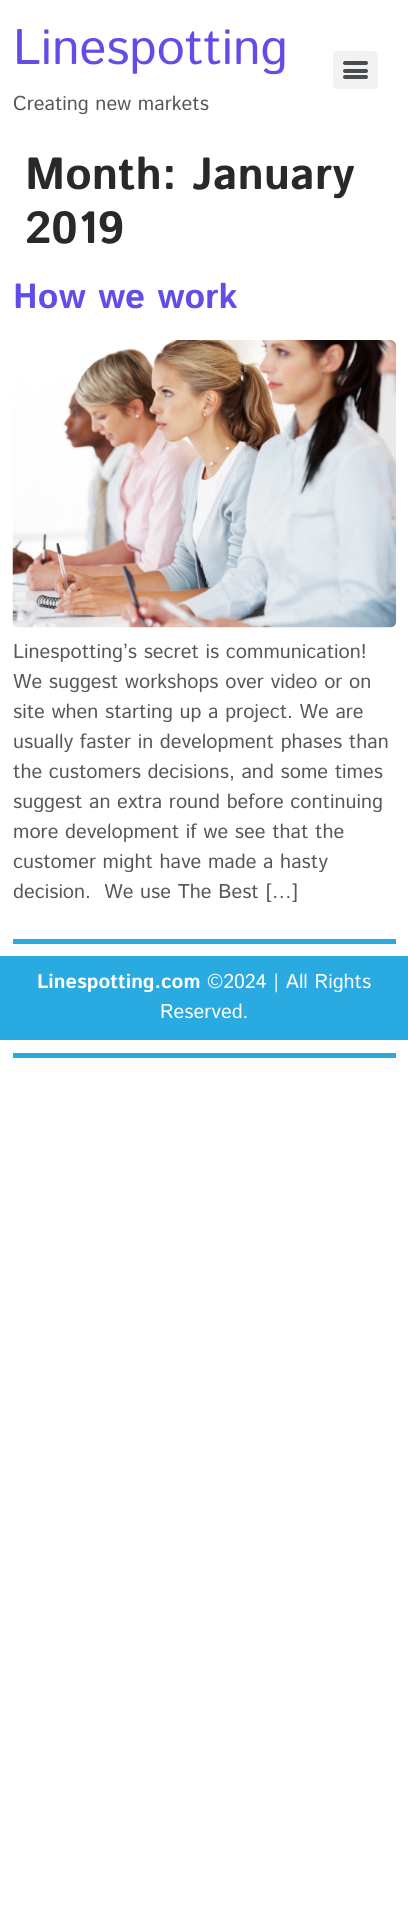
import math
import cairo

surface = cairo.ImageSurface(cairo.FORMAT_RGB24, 408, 1929)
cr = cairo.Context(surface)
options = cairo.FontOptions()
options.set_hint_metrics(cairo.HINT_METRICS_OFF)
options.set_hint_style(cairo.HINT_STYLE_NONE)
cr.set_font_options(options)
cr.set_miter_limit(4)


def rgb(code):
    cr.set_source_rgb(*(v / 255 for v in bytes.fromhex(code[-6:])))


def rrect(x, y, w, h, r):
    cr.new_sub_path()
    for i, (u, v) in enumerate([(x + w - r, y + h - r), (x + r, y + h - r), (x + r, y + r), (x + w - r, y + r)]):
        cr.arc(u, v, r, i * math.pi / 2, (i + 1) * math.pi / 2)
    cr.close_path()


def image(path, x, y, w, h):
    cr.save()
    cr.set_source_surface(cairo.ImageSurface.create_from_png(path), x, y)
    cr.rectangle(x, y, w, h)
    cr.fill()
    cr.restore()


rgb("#ffffff")
cr.paint()
rgb("#f2f2f2")
rrect(333, 51, 45, 38, 4)
cr.fill()
rgb("#494c4f")
rrect(343, 69, 25, 4, 2)
cr.fill()
rrect(343, 61, 25, 4, 2)
cr.fill()
rrect(343, 75, 25, 4, 2)
cr.fill()
image("img/1.png", 12, 340, 385, 288)
for x, y, w, h, color in [
    (13, 939, 383, 5, "#29abe1"),
    (0, 956, 408, 84, "#29abe1"),
    (13, 1053, 383, 5, "#29abe1"),
]:
    rgb(color)
    cr.rectangle(x, y, w, h)
    cr.fill()
cr.select_font_face("Istok Web")
cr.set_font_size(50)
rgb("#624de7")
cr.move_to(13, 64)
cr.show_text("Linespotting")
cr.set_font_size(20)
rgb("#575757")
cr.move_to(13, 110)
cr.show_text("Creating new markets")
cr.select_font_face("Istok Web", cairo.FONT_SLANT_NORMAL, cairo.FONT_WEIGHT_BOLD)
cr.set_font_size(45)
rgb("#29282b")
cr.move_to(25, 189)
cr.show_text("Month: January")
cr.move_to(25, 243)
cr.show_text("2019")
cr.set_font_size(35)
rgb("#624de7")
cr.move_to(13, 308)
cr.show_text("How we work")
cr.select_font_face("Istok Web")
cr.set_font_size(20)
rgb("#575757")
for x, y, s in [
    (13, 658, "Linespotting’s secret is communication!"),
    (13, 688, "We suggest workshops over video or on"),
    (13, 718, "site when starting up a project. We are"),
    (13, 748, "usually faster in development phases than"),
    (13, 778, "the customers decisions, and some times"),
    (13, 808, "suggest an extra round before continuing"),
    (13, 838, "more development if we see that the"),
    (13, 868, "customer might have made a hasty"),
    (13, 898, "decision.  We use The Best […]"),
]:
    cr.move_to(x, y)
    cr.show_text(s)
cr.select_font_face("Istok Web", cairo.FONT_SLANT_NORMAL, cairo.FONT_WEIGHT_BOLD)
rgb("#ffffff")
cr.move_to(37, 988)
cr.show_text("Linespotting.com")
cr.select_font_face("Istok Web")
cr.move_to(207, 988)
cr.show_text("©2024 | All Rights")
cr.move_to(160, 1018)
cr.show_text("Reserved.")
surface.write_to_png("page.png")
